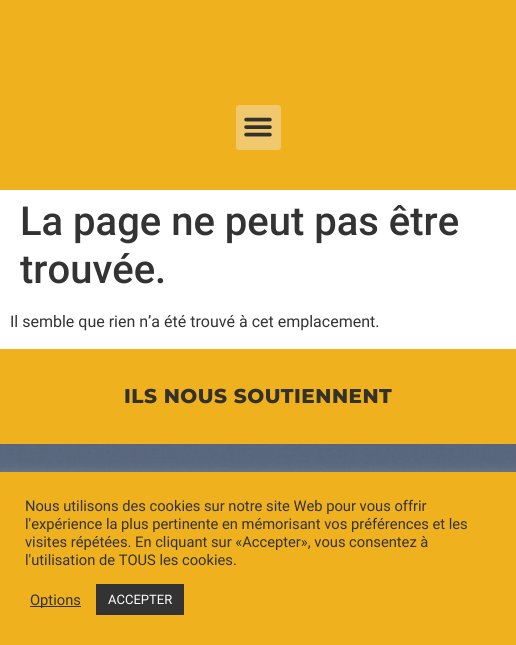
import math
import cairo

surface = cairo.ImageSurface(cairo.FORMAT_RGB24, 516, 645)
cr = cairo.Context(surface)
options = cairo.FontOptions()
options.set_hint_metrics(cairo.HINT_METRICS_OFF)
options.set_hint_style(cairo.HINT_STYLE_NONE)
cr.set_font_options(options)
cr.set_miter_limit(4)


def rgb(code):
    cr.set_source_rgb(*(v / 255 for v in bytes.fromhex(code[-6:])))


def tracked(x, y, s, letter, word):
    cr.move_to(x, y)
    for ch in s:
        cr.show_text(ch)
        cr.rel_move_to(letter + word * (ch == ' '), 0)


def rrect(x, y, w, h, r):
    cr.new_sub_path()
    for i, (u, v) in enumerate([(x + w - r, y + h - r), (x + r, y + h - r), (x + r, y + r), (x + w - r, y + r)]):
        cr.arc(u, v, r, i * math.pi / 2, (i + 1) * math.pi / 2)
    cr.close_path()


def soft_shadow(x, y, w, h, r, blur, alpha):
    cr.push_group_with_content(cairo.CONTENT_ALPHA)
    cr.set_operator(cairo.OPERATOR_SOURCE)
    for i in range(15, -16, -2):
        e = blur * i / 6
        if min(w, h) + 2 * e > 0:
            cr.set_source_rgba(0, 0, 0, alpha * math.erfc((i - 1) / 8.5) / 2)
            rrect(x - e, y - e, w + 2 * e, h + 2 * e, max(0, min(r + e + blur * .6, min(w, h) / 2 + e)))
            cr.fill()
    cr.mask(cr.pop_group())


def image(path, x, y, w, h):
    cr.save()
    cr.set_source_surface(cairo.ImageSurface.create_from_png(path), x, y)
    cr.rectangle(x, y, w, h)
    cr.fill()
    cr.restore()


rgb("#ffffff")
cr.paint()
rgb("#efb11e")
cr.rectangle(0, 0, 516, 190)
cr.fill()
rgb("#f0c96f")
rrect(236, 105, 45, 45, 3)
cr.fill()
image("img/1.png", 244, 117, 28, 20)
rgb("#efb11e")
cr.rectangle(0, 349, 516, 95)
cr.fill()
image("img/2.png", 0, 444, 516, 28)
rgb("#acabab")
soft_shadow(0, 471, 516, 173, 0, 5, 0.3)
for x, y, w, h, color in [
    (0, 472, 516, 173, "#efb11e"),
    (30, 606, 51, 1, "#333333"),
    (96, 584, 88, 31, "#333333"),
]:
    rgb(color)
    cr.rectangle(x, y, w, h)
    cr.fill()
cr.select_font_face("Roboto Medium")
cr.set_font_size(40)
cr.move_to(20, 235)
cr.show_text("La page ne peut pas être")
cr.move_to(20, 283)
cr.show_text("trouvée.")
cr.select_font_face("Roboto")
cr.set_font_size(16)
cr.move_to(10, 327)
cr.show_text("Il semble que rien n’a été trouvé à cet emplacement.")
cr.select_font_face("Montserrat ExtraBold")
cr.set_font_size(20)
rgb("#33312b")
tracked(124, 403, "ILS NOUS SOUTIENNENT", 0.5, 0)
cr.select_font_face("Roboto")
cr.set_font_size(14.7)
rgb("#333333")
for x, y, s in [
    (25, 511, "Nous utilisons des cookies sur notre site Web pour vous offrir"),
    (25, 529, "l'expérience la plus pertinente en mémorisant vos préférences et les"),
    (25, 547, "visites répétées. En cliquant sur «Accepter», vous consentez à"),
    (25, 565, "l'utilisation de TOUS les cookies."),
    (30, 605, "Options"),
]:
    cr.move_to(x, y)
    cr.show_text(s)
cr.set_font_size(13)
rgb("#ffffff")
cr.move_to(108, 604)
cr.show_text("ACCEPTER")
surface.write_to_png("page.png")
